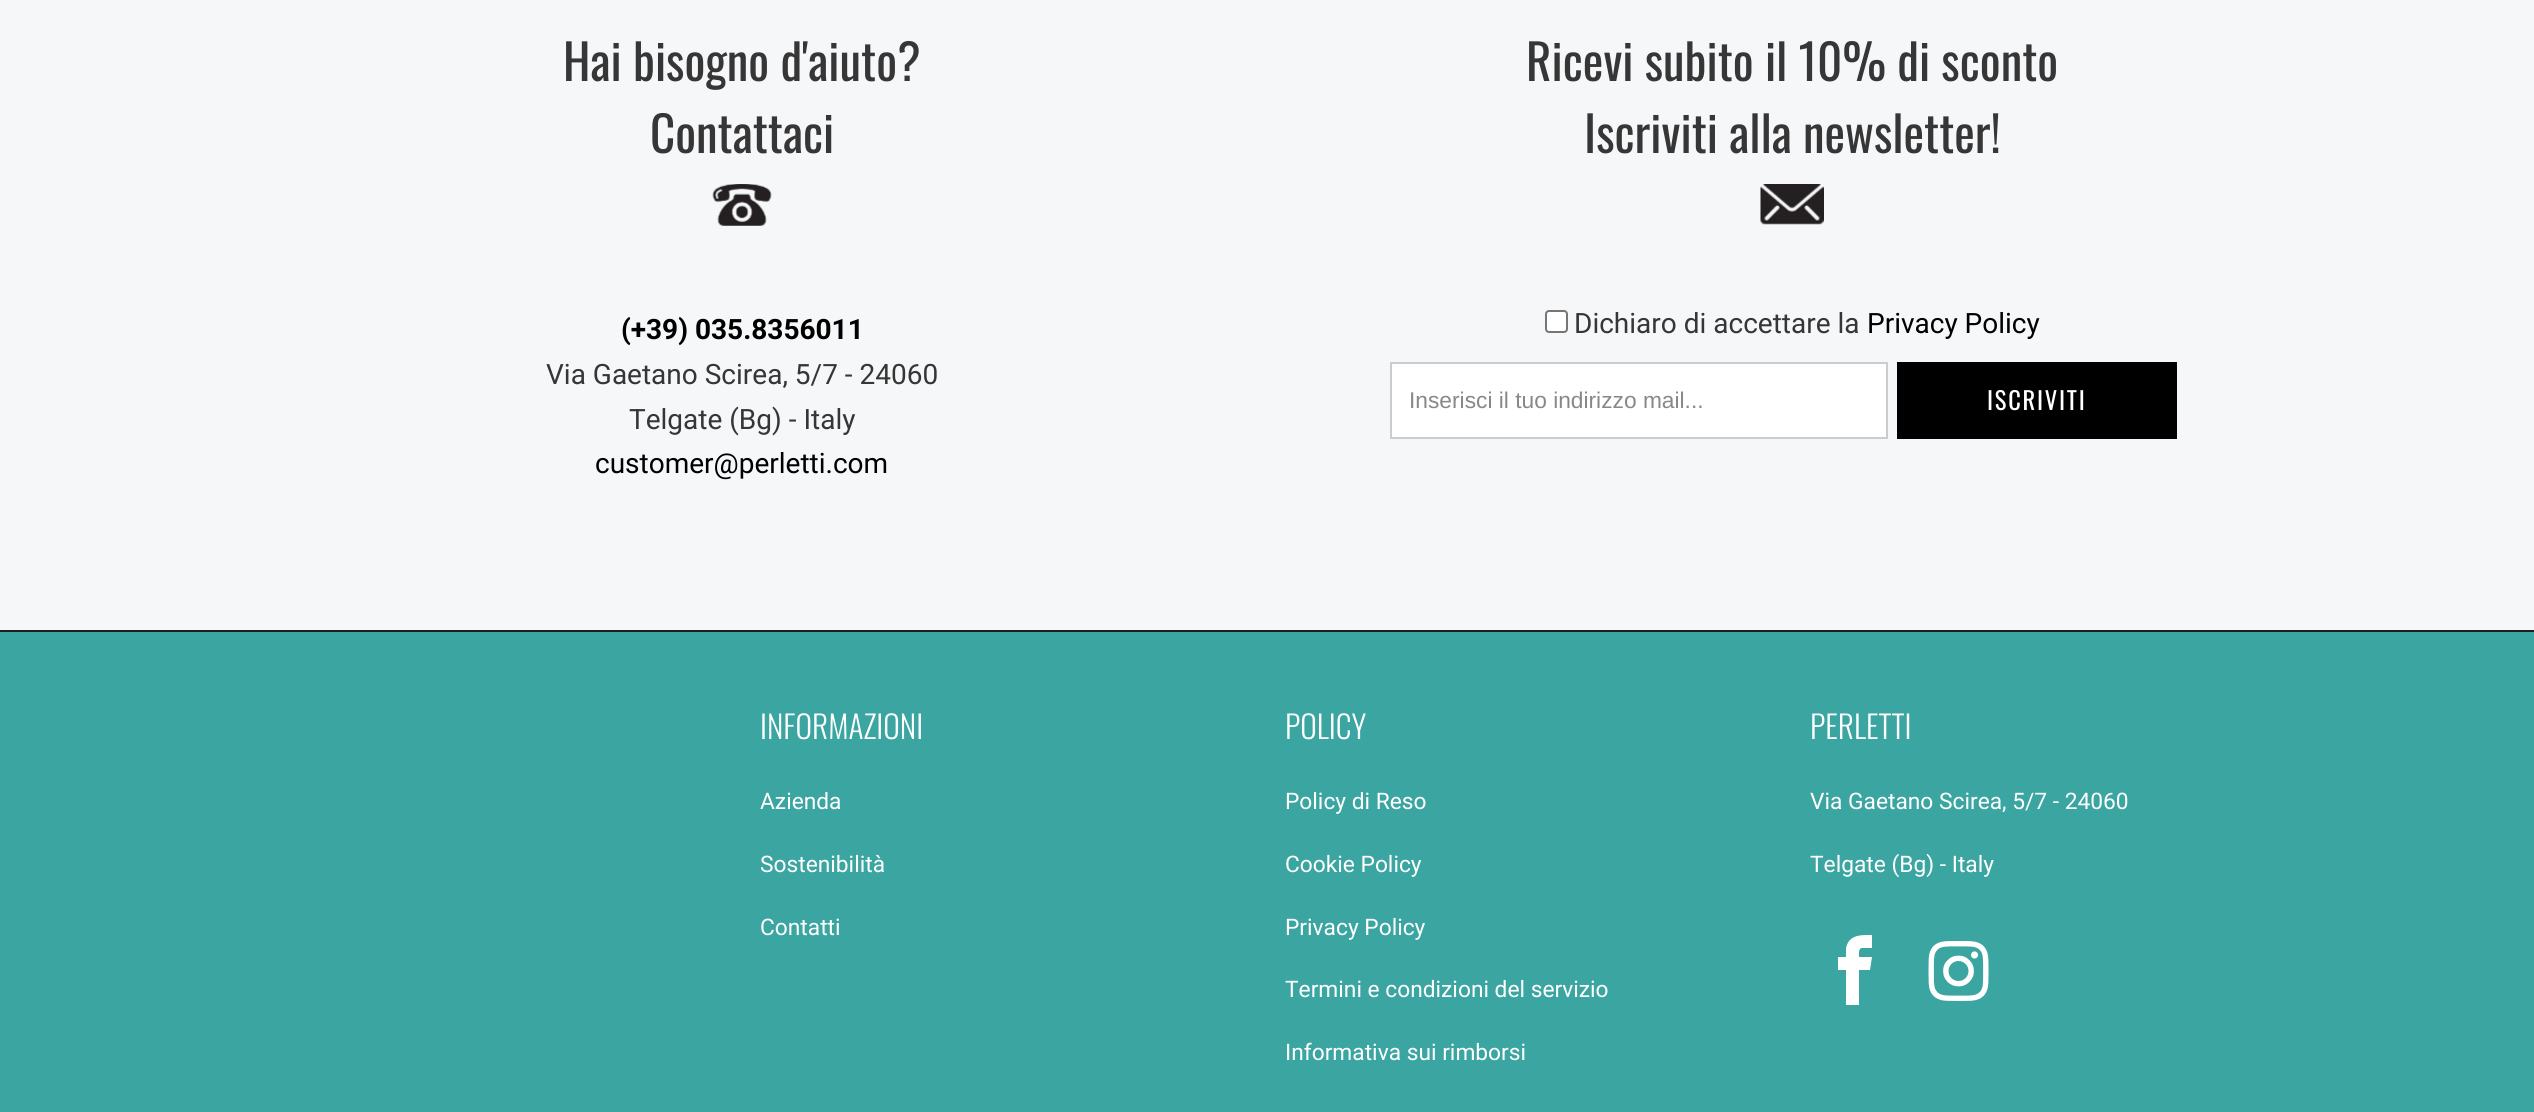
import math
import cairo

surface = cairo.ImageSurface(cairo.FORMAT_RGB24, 2534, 1112)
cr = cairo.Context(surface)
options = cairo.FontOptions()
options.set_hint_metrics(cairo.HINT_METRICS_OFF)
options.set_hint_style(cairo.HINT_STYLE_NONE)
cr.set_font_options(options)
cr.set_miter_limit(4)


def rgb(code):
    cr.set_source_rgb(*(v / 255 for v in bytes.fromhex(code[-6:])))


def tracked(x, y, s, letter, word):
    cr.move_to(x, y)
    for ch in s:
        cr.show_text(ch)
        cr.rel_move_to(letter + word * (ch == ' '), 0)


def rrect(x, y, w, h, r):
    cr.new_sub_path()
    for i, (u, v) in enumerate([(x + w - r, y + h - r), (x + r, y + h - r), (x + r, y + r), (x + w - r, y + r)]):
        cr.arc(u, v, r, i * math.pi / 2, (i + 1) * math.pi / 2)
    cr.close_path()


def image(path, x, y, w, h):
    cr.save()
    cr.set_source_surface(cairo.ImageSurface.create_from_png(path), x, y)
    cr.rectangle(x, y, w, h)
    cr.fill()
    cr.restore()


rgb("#3ba5a2")
cr.paint()
rgb("#f6f7f9")
cr.rectangle(0, 0, 2534, 630)
cr.fill()
image("img/1.png", 712, 184, 60, 42)
image("img/2.png", 1760, 184, 64, 41)
rgb("#ffffff")
rrect(1546, 311, 21, 21, 3)
cr.fill_preserve()
rgb("#767676")
cr.stroke()
rgb("#ffffff")
cr.rectangle(1391, 363, 496, 75)
cr.fill_preserve()
rgb("#cccccc")
cr.stroke()
rgb("#000000")
cr.rectangle(1897, 362, 280, 77)
cr.fill()
rgb("#1b1f23")
cr.rectangle(0, 630, 2534, 2)
cr.fill()
rgb("#ffffff")
cr.new_path()
cr.move_to(1862, 948)
cr.line_to(1872, 948)
cr.line_to(1872, 935)
cr.curve_to(1862, 935, 1849, 934, 1846, 948)
cr.line_to(1846, 957)
cr.line_to(1838, 957)
cr.line_to(1838, 970)
cr.line_to(1846, 970)
cr.line_to(1846, 1005)
cr.line_to(1859, 1005)
cr.line_to(1859, 970)
cr.line_to(1870, 970)
cr.line_to(1872, 957)
cr.line_to(1859, 957)
cr.curve_to(1859, 956, 1858, 948, 1862, 948)
cr.close_path()
cr.fill()
image("img/3.png", 1928, 941, 61, 60)
cr.select_font_face("Oswald")
cr.set_font_size(49)
rgb("#363636")
cr.move_to(563, 81)
cr.show_text("Hai bisogno d'aiuto?")
cr.move_to(650, 153)
cr.show_text("Contattaci")
cr.select_font_face("Roboto", cairo.FONT_SLANT_NORMAL, cairo.FONT_WEIGHT_BOLD)
cr.set_font_size(28)
rgb("#000000")
cr.move_to(621, 339)
cr.show_text("(+39) 035.8356011")
cr.select_font_face("Roboto")
rgb("#363636")
cr.move_to(546, 384)
cr.show_text("Via Gaetano Scirea, 5/7 - 24060")
cr.move_to(629, 429)
cr.show_text("Telgate (Bg) - Italy")
rgb("#000000")
cr.move_to(595, 473)
cr.show_text("customer@perletti.com")
cr.select_font_face("Oswald")
cr.set_font_size(49)
rgb("#363636")
cr.move_to(1526, 81)
cr.show_text("Ricevi subito il 10% di sconto")
cr.move_to(1584, 153)
cr.show_text("Iscriviti alla newsletter!")
cr.select_font_face("Roboto")
cr.set_font_size(28)
cr.move_to(1574, 333)
cr.show_text("Dichiaro di accettare la")
rgb("#000000")
cr.move_to(1867, 333)
cr.show_text("Privacy Policy")
cr.select_font_face("Liberation Sans")
cr.set_font_size(22.75)
rgb("#888888")
cr.move_to(1409, 408)
cr.show_text("Inserisci il tuo indirizzo mail...")
cr.select_font_face("Oswald")
cr.set_font_size(24.5)
rgb("#ffffff")
tracked(1987, 410, "ISCRIVITI", 1.75, 0)
cr.select_font_face("Oswald Light")
cr.set_font_size(31.5)
cr.move_to(760, 739)
cr.show_text("INFORMAZIONI")
cr.select_font_face("Roboto")
cr.set_font_size(22.75)
for x, y, s in [
    (760, 809, "Azienda"),
    (760, 872, "Sostenibilità"),
    (760, 935, "Contatti"),
]:
    cr.move_to(x, y)
    cr.show_text(s)
cr.select_font_face("Oswald Light")
cr.set_font_size(31.5)
cr.move_to(1285, 739)
cr.show_text("POLICY")
cr.select_font_face("Roboto")
cr.set_font_size(22.75)
for x, y, s in [
    (1285, 809, "Policy di Reso"),
    (1285, 872, "Cookie Policy"),
    (1285, 935, "Privacy Policy"),
    (1285, 997, "Termini e condizioni del servizio"),
    (1285, 1060, "Informativa sui rimborsi"),
]:
    cr.move_to(x, y)
    cr.show_text(s)
cr.select_font_face("Oswald Light")
cr.set_font_size(31.5)
cr.move_to(1810, 739)
cr.show_text("PERLETTI")
cr.select_font_face("Roboto")
cr.set_font_size(22.75)
cr.move_to(1810, 809)
cr.show_text("Via Gaetano Scirea, 5/7 - 24060")
cr.move_to(1810, 872)
cr.show_text("Telgate (Bg) - Italy")
surface.write_to_png("page.png")
